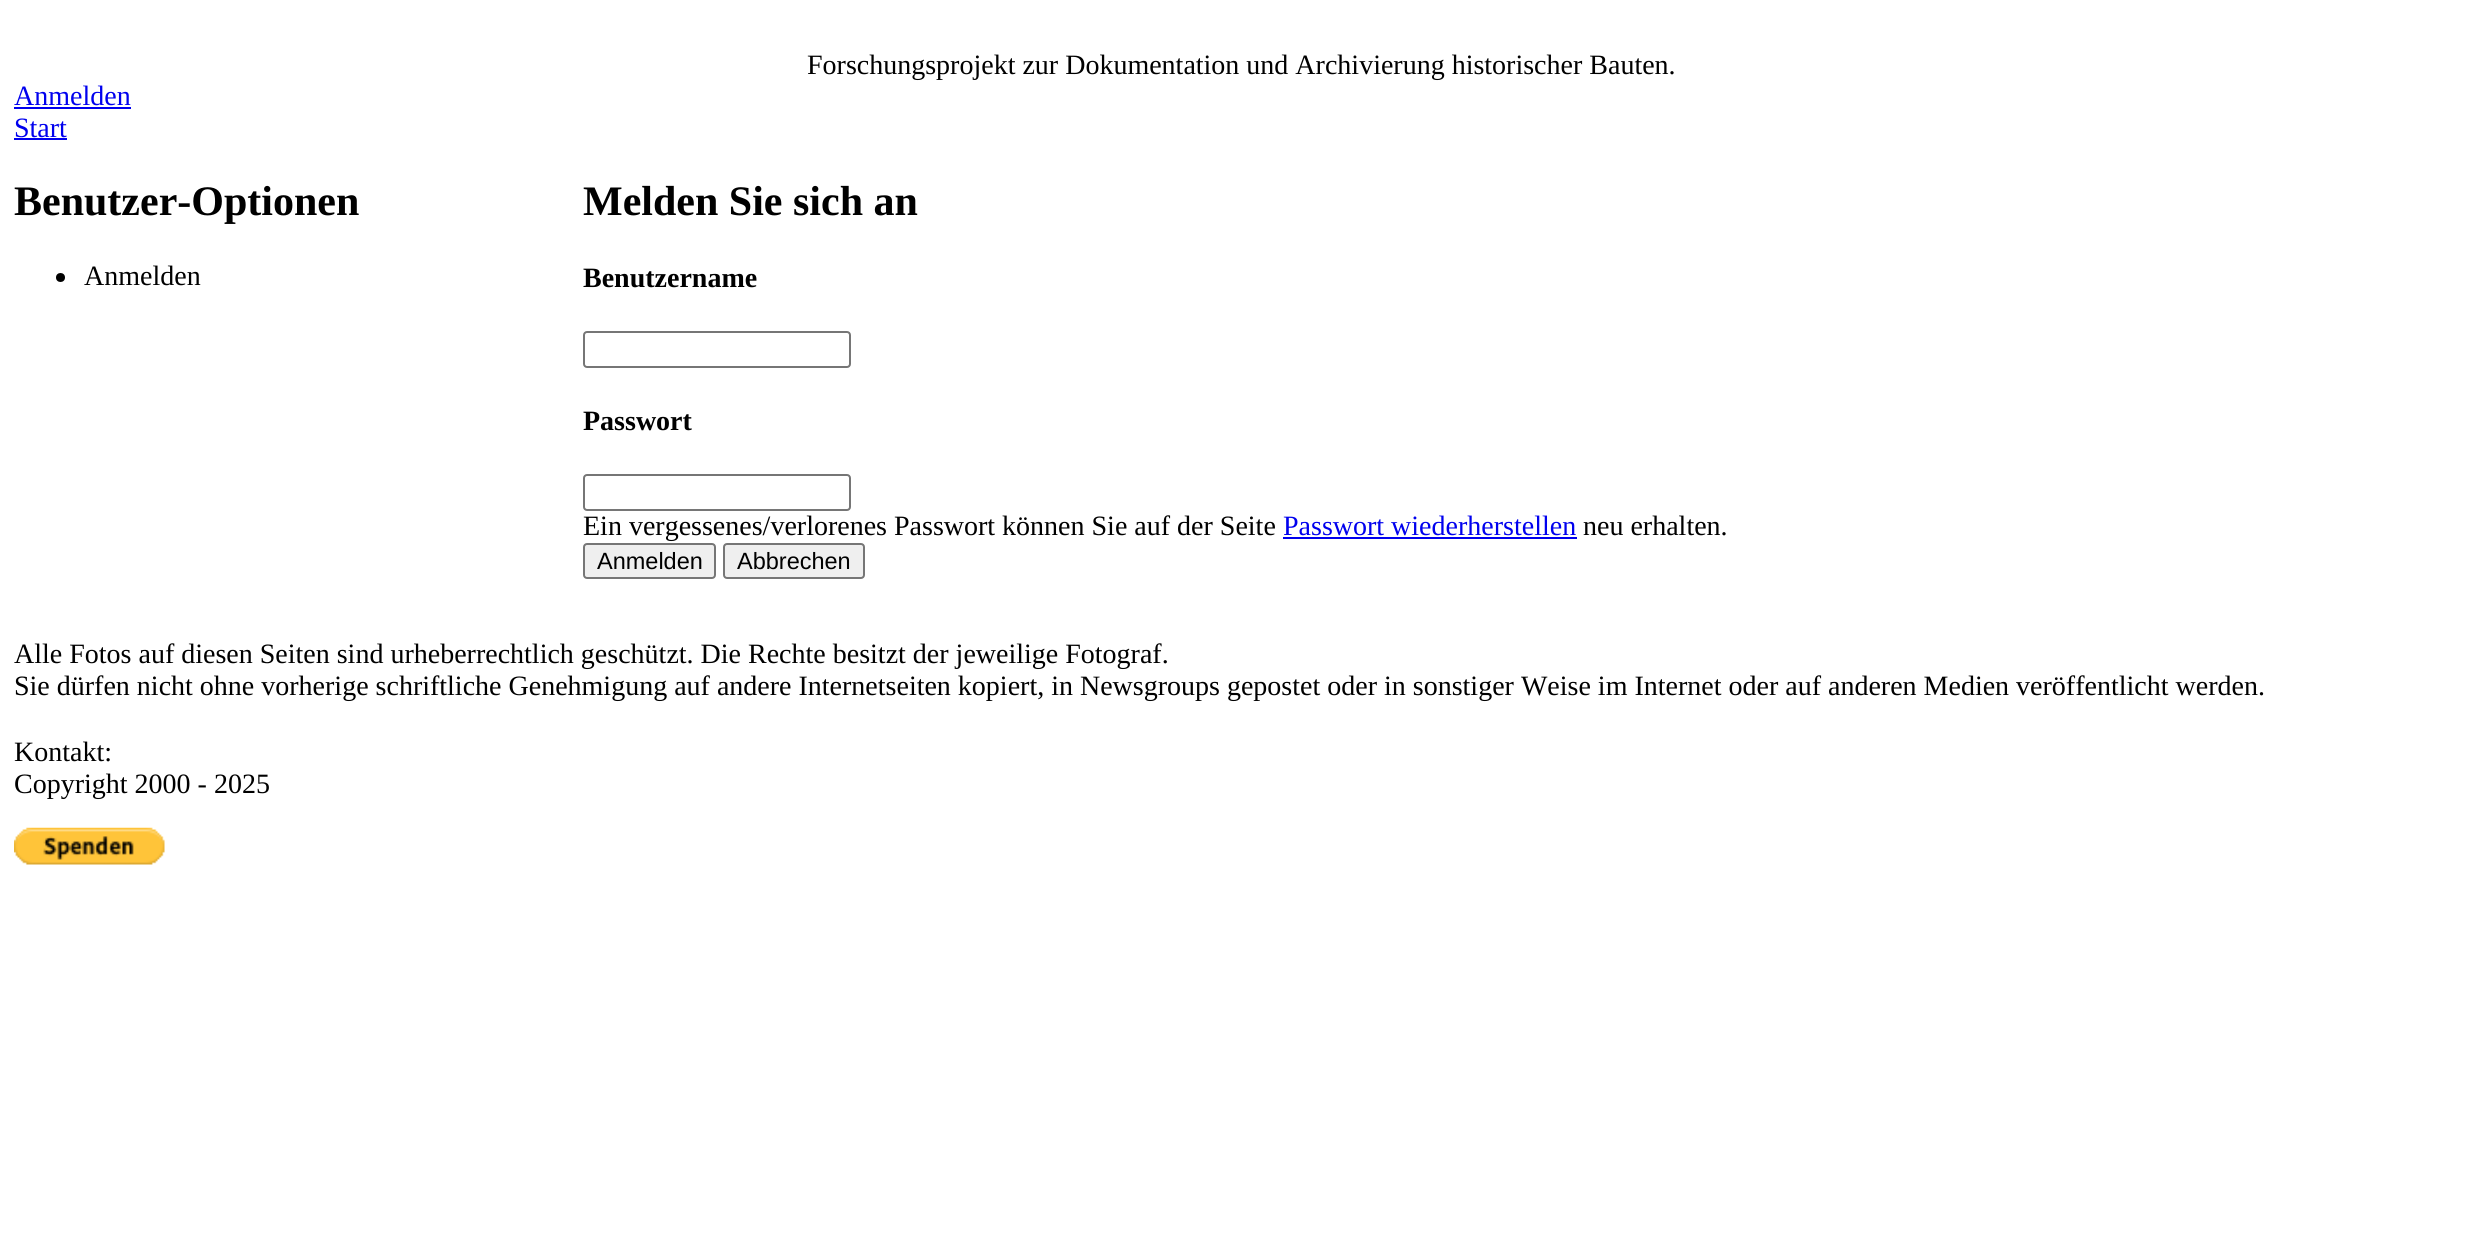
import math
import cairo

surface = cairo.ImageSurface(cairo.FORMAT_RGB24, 2483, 1258)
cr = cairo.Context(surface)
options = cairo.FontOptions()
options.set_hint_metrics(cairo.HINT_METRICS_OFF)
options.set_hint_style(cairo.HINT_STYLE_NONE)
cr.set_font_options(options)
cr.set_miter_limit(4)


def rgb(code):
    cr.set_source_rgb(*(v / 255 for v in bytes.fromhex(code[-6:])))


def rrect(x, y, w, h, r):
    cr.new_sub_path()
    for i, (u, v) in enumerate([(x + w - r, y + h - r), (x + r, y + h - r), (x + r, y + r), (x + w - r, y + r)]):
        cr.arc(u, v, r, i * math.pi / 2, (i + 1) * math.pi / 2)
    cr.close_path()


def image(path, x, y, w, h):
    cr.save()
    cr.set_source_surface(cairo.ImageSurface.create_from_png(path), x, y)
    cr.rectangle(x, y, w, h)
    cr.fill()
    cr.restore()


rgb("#ffffff")
cr.paint()
rgb("#0000ee")
cr.rectangle(14, 107, 117, 2)
cr.fill()
cr.rectangle(14, 138, 53, 2)
cr.fill()
rgb("#000000")
cr.arc(60.5, 277.5, 4.5, 0, 2 * math.pi)
cr.fill()
rrect(584, 332, 266, 35, 3)
rgb("#767676")
cr.stroke()
rrect(584, 475, 266, 35, 3)
cr.stroke()
rgb("#0000ee")
cr.rectangle(1283, 537, 294, 2)
cr.fill()
rgb("#efefef")
rrect(584, 544, 131, 34, 3)
cr.fill_preserve()
rgb("#767676")
cr.stroke()
rgb("#efefef")
rrect(724, 544, 140, 34, 3)
cr.fill_preserve()
rgb("#767676")
cr.stroke()
image("img/1.png", 14, 827, 151, 38)
cr.select_font_face("Liberation Serif")
cr.set_font_size(28)
rgb("#000000")
cr.move_to(807, 74)
cr.show_text("Forschungsprojekt zur Dokumentation und Archivierung historischer Bauten.")
rgb("#0000ee")
cr.move_to(14, 105)
cr.show_text("Anmelden")
cr.move_to(14, 137)
cr.show_text("Start")
cr.select_font_face("Liberation Serif", cairo.FONT_SLANT_NORMAL, cairo.FONT_WEIGHT_BOLD)
cr.set_font_size(42)
rgb("#000000")
cr.move_to(14, 215)
cr.show_text("Benutzer-Optionen")
cr.select_font_face("Liberation Serif")
cr.set_font_size(28)
cr.move_to(84, 285)
cr.show_text("Anmelden")
cr.select_font_face("Liberation Serif", cairo.FONT_SLANT_NORMAL, cairo.FONT_WEIGHT_BOLD)
cr.set_font_size(42)
cr.move_to(583, 215)
cr.show_text("Melden Sie sich an")
cr.set_font_size(28)
cr.move_to(583, 287)
cr.show_text("Benutzername")
cr.move_to(583, 430)
cr.show_text("Passwort")
cr.select_font_face("Liberation Serif")
cr.move_to(583, 535)
cr.show_text("Ein vergessenes/verlorenes Passwort können Sie auf der Seite")
rgb("#0000ee")
cr.move_to(1283, 535)
cr.show_text("Passwort wiederherstellen")
rgb("#000000")
cr.move_to(1583, 535)
cr.show_text("neu erhalten.")
cr.select_font_face("Liberation Sans")
cr.set_font_size(23.5)
cr.move_to(597, 569)
cr.show_text("Anmelden")
cr.move_to(737, 569)
cr.show_text("Abbrechen")
cr.select_font_face("Liberation Serif")
cr.set_font_size(28)
for x, y, s in [
    (14, 663, "Alle Fotos auf diesen Seiten sind urheberrechtlich geschützt. Die Rechte besitzt der jeweilige Fotograf."),
    (14, 695, "Sie dürfen nicht ohne vorherige schriftliche Genehmigung auf andere Internetseiten kopiert, in Newsgroups gepostet oder in sonstiger Weise im Internet oder auf anderen Medien veröffentlicht werden."),
    (14, 761, "Kontakt:"),
    (14, 793, "Copyright 2000 - 2025"),
]:
    cr.move_to(x, y)
    cr.show_text(s)
surface.write_to_png("page.png")
